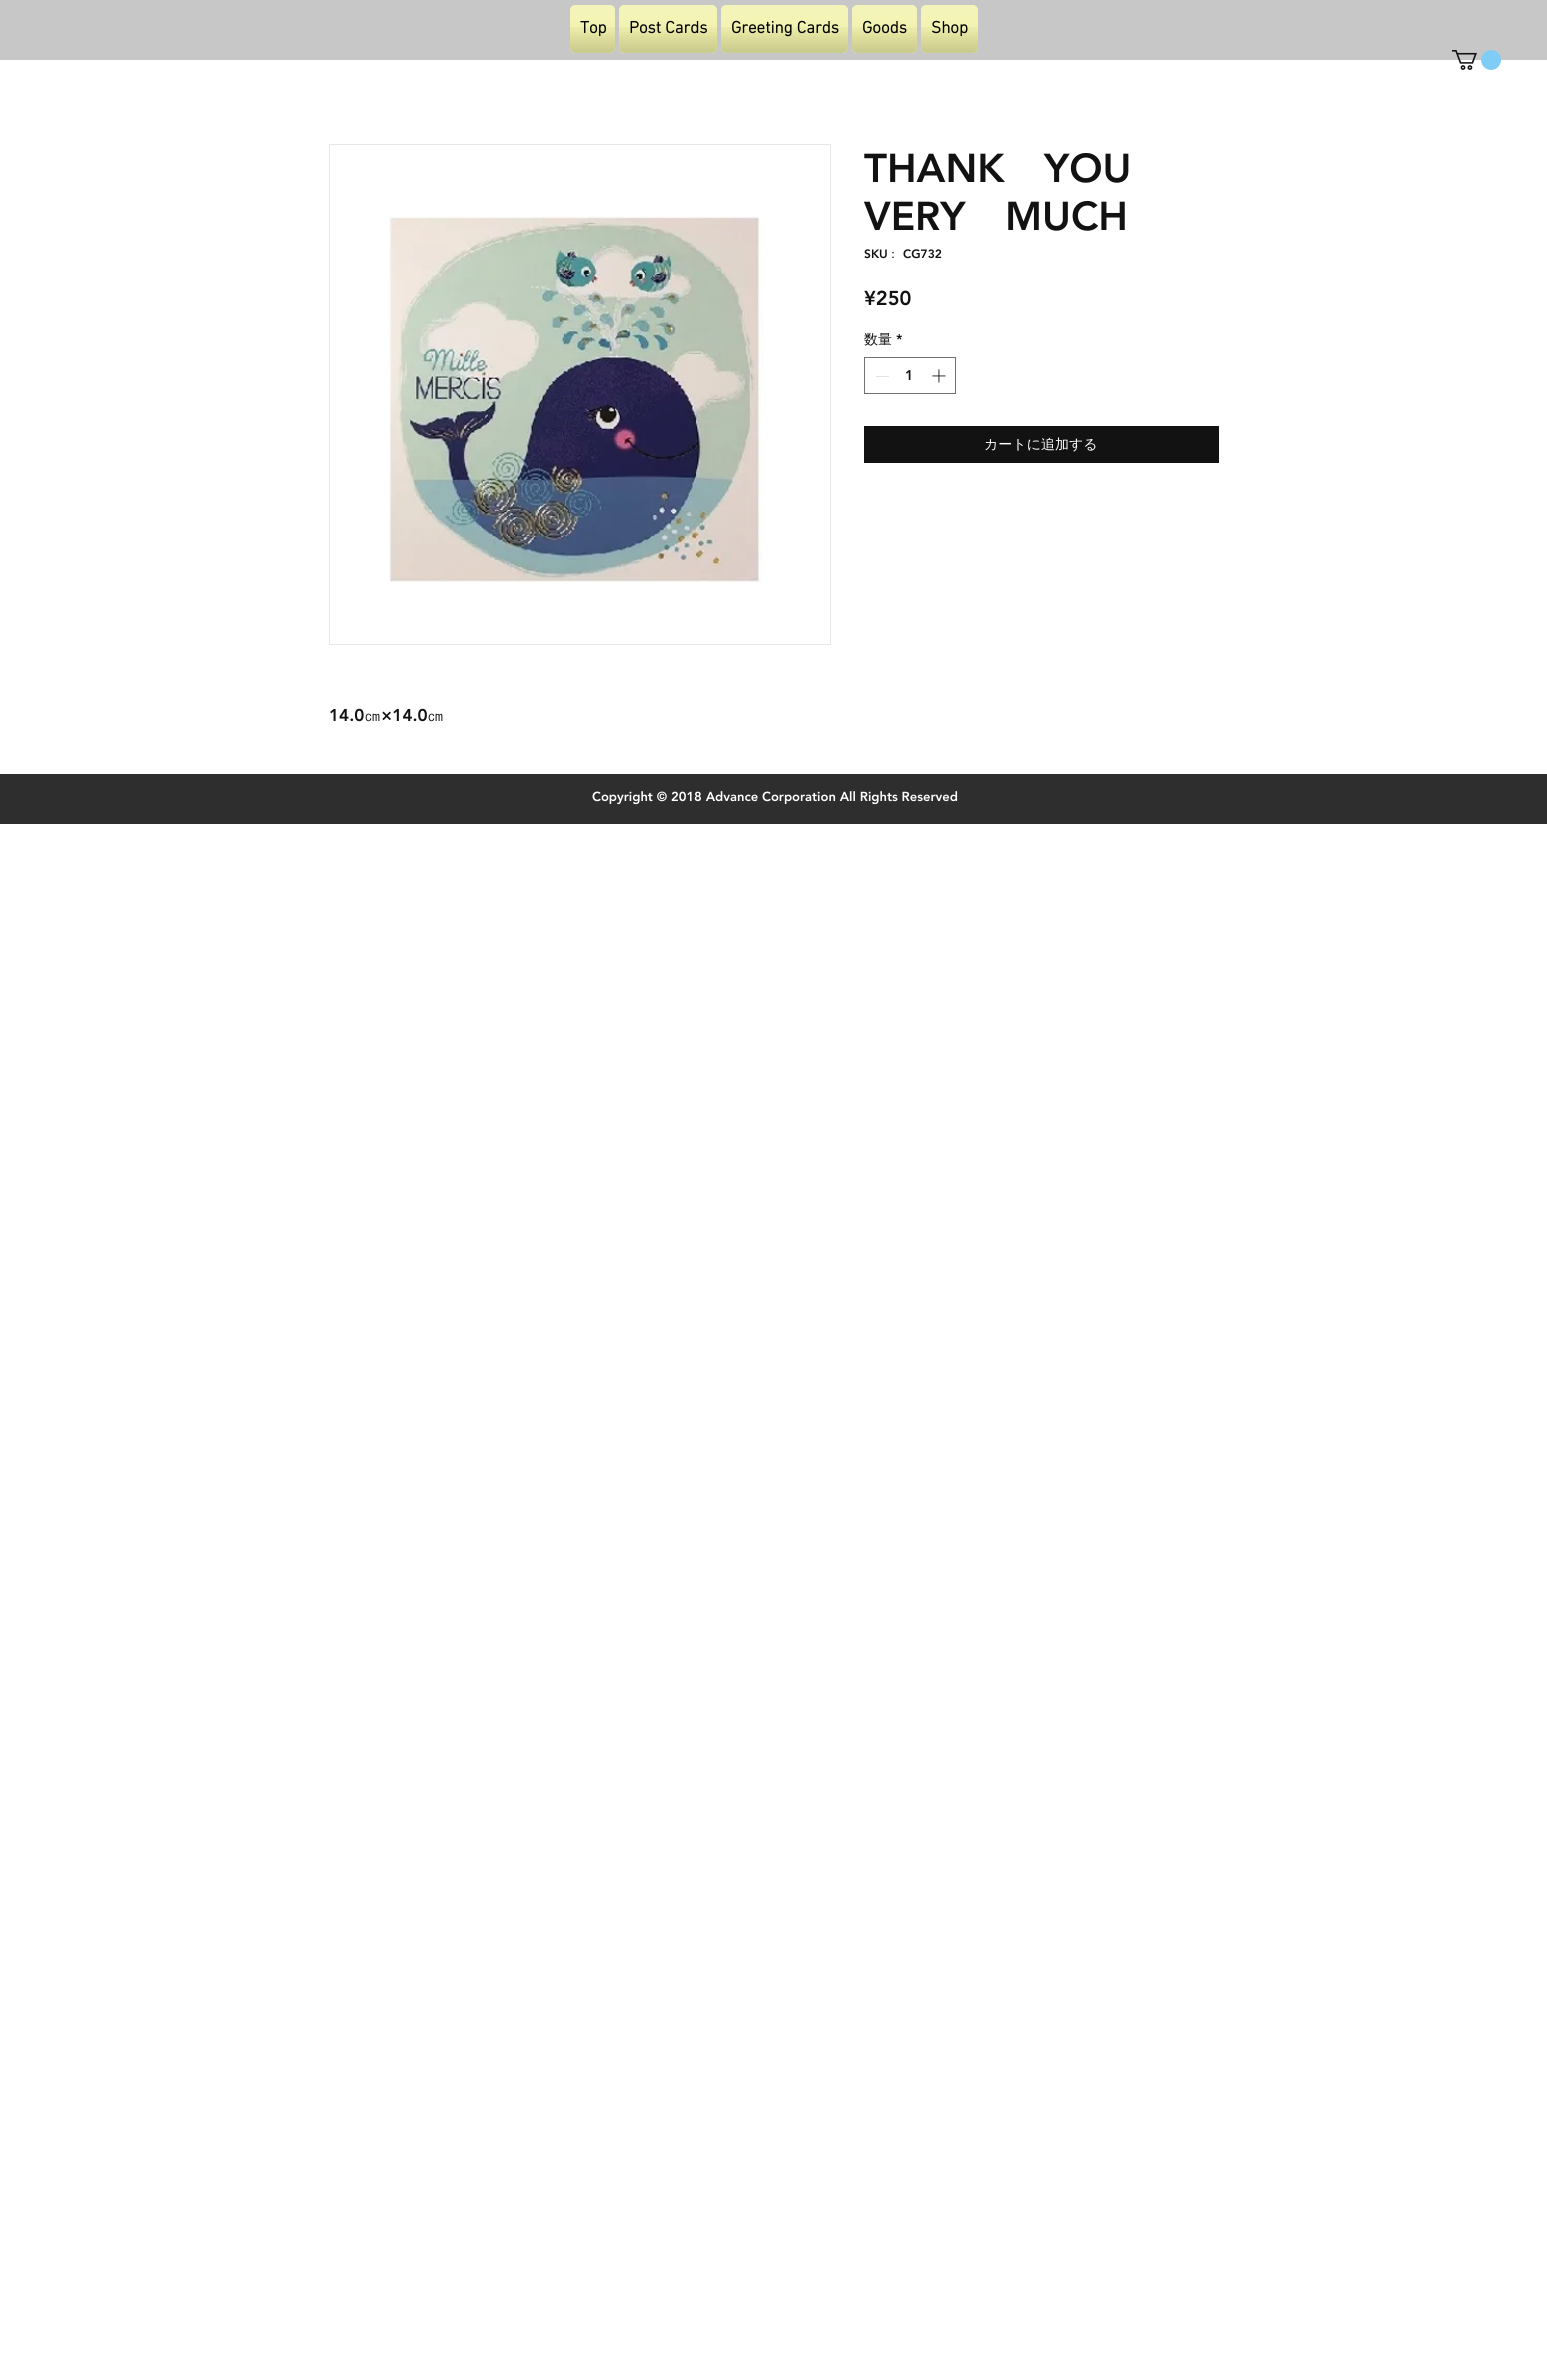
import math
import cairo

surface = cairo.ImageSurface(cairo.FORMAT_RGB24, 1547, 2366)
cr = cairo.Context(surface)
options = cairo.FontOptions()
options.set_hint_metrics(cairo.HINT_METRICS_OFF)
options.set_hint_style(cairo.HINT_STYLE_NONE)
cr.set_font_options(options)
cr.set_miter_limit(4)


def rgb(code):
    cr.set_source_rgb(*(v / 255 for v in bytes.fromhex(code[-6:])))


def rrect(x, y, w, h, r):
    cr.new_sub_path()
    for i, (u, v) in enumerate([(x + w - r, y + h - r), (x + r, y + h - r), (x + r, y + r), (x + w - r, y + r)]):
        cr.arc(u, v, r, i * math.pi / 2, (i + 1) * math.pi / 2)
    cr.close_path()


def image(path, x, y, w, h):
    cr.save()
    cr.set_source_surface(cairo.ImageSurface.create_from_png(path), x, y)
    cr.rectangle(x, y, w, h)
    cr.fill()
    cr.restore()


rgb("#ffffff")
cr.paint()
rgb("#c7c7c7")
cr.rectangle(0, 0, 1547, 60)
cr.fill()
rgb("#f1f2aa")
rrect(570, 5, 45, 48, 5)
cr.fill()
image("img/1.png", 570, 5, 45, 27)
image("img/2.png", 570, 27, 45, 26)
rrect(619, 5, 98, 48, 5)
cr.fill()
image("img/3.png", 619, 5, 98, 27)
image("img/4.png", 619, 27, 98, 26)
rrect(721, 5, 127, 48, 5)
cr.fill()
image("img/5.png", 721, 5, 127, 27)
image("img/6.png", 721, 27, 127, 26)
rrect(852, 5, 65, 48, 5)
cr.fill()
image("img/7.png", 852, 5, 65, 27)
image("img/8.png", 852, 27, 65, 26)
rrect(921, 5, 57, 48, 5)
cr.fill()
image("img/9.png", 921, 5, 57, 27)
image("img/10.png", 921, 27, 57, 26)
image("img/11.png", 1452, 50, 49, 20)
cr.rectangle(864.5, 357.5, 91, 36)
rgb("#717171")
cr.set_line_width(1)
cr.stroke()
rgb("#e3e3e3")
cr.rectangle(876, 376, 13, 1)
cr.fill()
image("img/12.png", 932, 369, 14, 14)
rgb("#121212")
cr.rectangle(864, 426, 355, 37)
cr.fill()
cr.rectangle(329.5, 144.5, 501, 500)
rgb("#e8e6e6")
cr.stroke()
image("img/13.png", 389, 215, 374, 368)
rgb("#2f2e2e")
cr.rectangle(0, 774, 1547, 50)
cr.fill()
cr.select_font_face("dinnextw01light", cairo.FONT_SLANT_NORMAL, cairo.FONT_WEIGHT_BOLD)
cr.set_font_size(17)
rgb("#000000")
for x, y, s in [
    (580, 33, "Top"),
    (629, 33, "Post Cards"),
    (731, 33, "Greeting Cards"),
    (862, 33, "Goods"),
    (931, 33, "Shop"),
]:
    cr.move_to(x, y)
    cr.show_text(s)
cr.select_font_face("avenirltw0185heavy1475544 Black")
cr.set_font_size(40)
rgb("#121212")
for x, y, s in [
    (864, 182, "THANK"),
    (1044, 182, "YOU"),
    (864, 230, "VERY"),
    (1005, 230, "MUCH"),
]:
    cr.move_to(x, y)
    cr.show_text(s)
cr.set_font_size(12)
cr.move_to(864, 258)
cr.show_text("SKU")
cr.select_font_face("WenQuanYi Zen Hei Medium")
cr.move_to(887, 258)
cr.show_text("：")
cr.select_font_face("avenirltw0185heavy1475544 Black")
cr.move_to(903, 258)
cr.show_text("CG732")
cr.set_font_size(20)
cr.move_to(864, 305)
cr.show_text("¥250")
cr.select_font_face("WenQuanYi Zen Hei Medium")
cr.set_font_size(14)
cr.move_to(864, 344)
cr.show_text("数量")
cr.select_font_face("avenirltw0185heavy1475544 Black")
cr.move_to(896, 344)
cr.show_text("*")
cr.move_to(905, 380)
cr.show_text("1")
cr.select_font_face("WenQuanYi Zen Hei Medium")
rgb("#ffffff")
cr.move_to(984, 449)
cr.show_text("カートに追加する")
cr.select_font_face("avenirltw0185heavy1475544 Black")
cr.set_font_size(17)
rgb("#121212")
cr.move_to(329, 721)
cr.show_text("14.0")
cr.select_font_face("WenQuanYi Zen Hei Medium")
cr.move_to(364, 721)
cr.show_text("㎝")
cr.select_font_face("avenirltw0185heavy1475544 Black")
cr.move_to(381, 721)
cr.show_text("×14.0")
cr.select_font_face("WenQuanYi Zen Hei Medium")
cr.move_to(427, 721)
cr.show_text("㎝")
cr.select_font_face("avenirltw0185heavy1475544 Black")
cr.set_font_size(13)
rgb("#ffffff")
cr.move_to(592, 801)
cr.show_text("Copyright © 2018 Advance Corporation All Rights Reserved")
surface.write_to_png("page.png")
